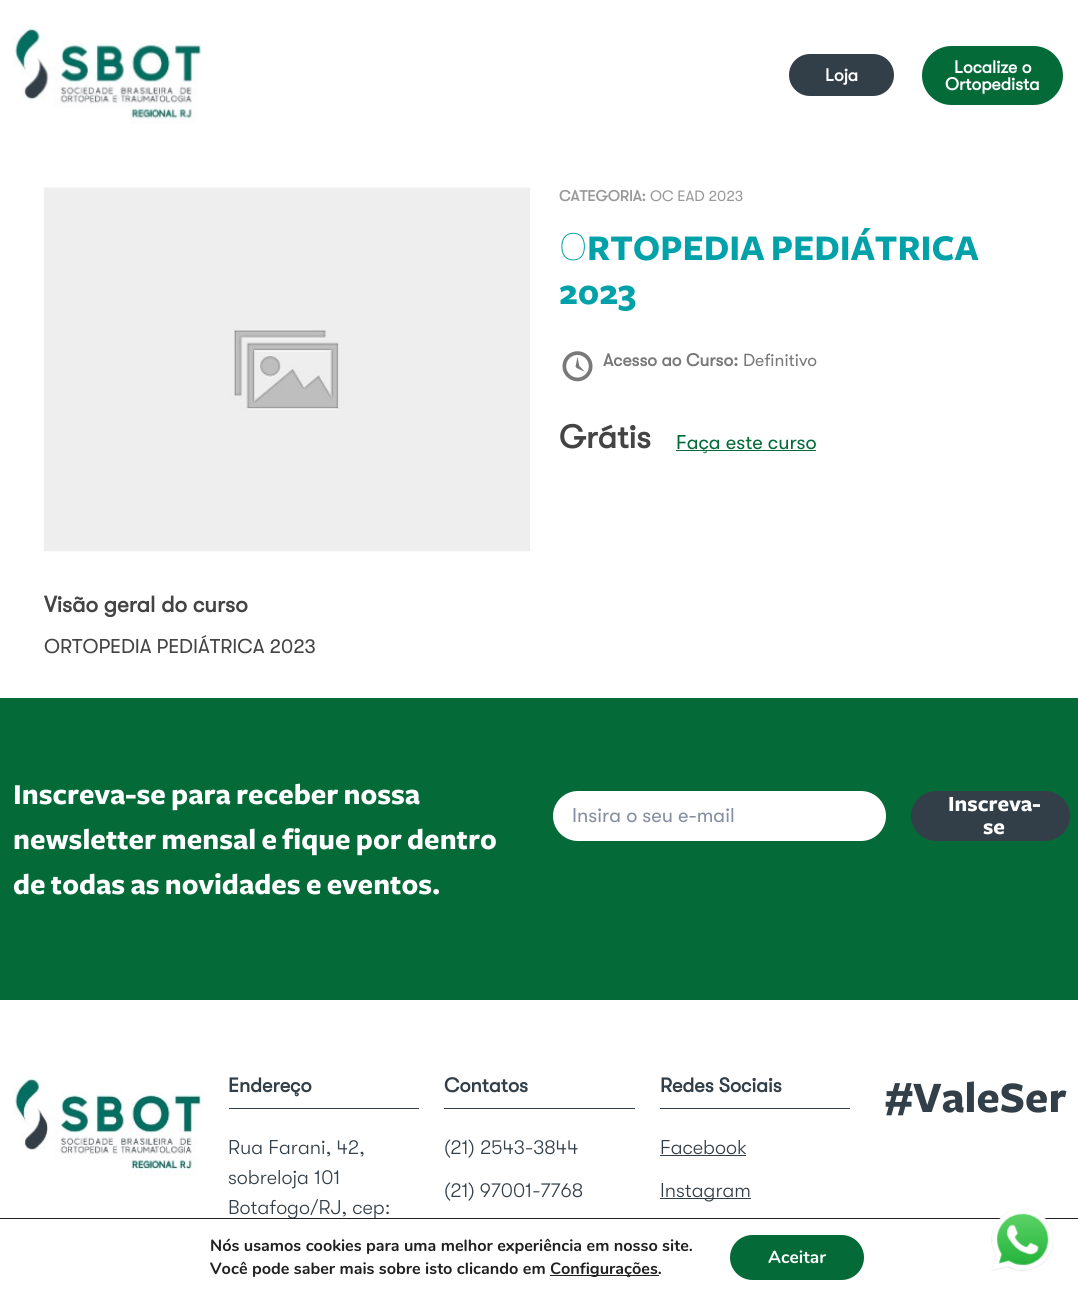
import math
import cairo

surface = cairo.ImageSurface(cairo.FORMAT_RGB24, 1078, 1296)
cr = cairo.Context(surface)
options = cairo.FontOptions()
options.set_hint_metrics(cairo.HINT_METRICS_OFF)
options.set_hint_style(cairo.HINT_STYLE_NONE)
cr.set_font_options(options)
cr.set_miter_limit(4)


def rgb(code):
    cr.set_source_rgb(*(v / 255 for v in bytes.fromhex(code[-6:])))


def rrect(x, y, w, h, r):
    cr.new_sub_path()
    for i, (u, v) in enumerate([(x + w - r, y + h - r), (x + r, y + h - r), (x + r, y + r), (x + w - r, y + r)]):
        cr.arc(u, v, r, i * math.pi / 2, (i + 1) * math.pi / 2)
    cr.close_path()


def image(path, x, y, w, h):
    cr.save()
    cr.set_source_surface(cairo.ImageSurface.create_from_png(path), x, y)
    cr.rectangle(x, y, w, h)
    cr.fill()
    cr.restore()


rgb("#ffffff")
cr.paint()
image("img/1.png", 12, 26, 190, 98)
rgb("#333f48")
rrect(789, 54, 105, 42, 21)
cr.fill()
rgb("#046a38")
rrect(920.5, 44.5, 144, 62, 31)
cr.fill_preserve()
rgb("#ffffff")
cr.set_line_width(3)
cr.stroke()
image("img/2.png", 43, 187, 487, 365)
image("img/3.png", 562, 351, 31, 31)
rgb("#046a38")
cr.rectangle(676, 450, 140, 1)
cr.fill()
cr.rectangle(0, 698, 1078, 302)
cr.fill()
rgb("#ffffff")
rrect(553, 791, 333, 50, 25)
cr.fill()
rgb("#333f48")
rrect(911, 791, 159, 50, 25)
cr.fill()
image("img/4.png", 12, 1075, 190, 100)
for x, y, w, h, color in [
    (229, 1108, 190, 1, "#333f48"),
    (444, 1108, 191, 1, "#333f48"),
    (660, 1108, 190, 1, "#333f48"),
    (660, 1155, 86, 1, "#333f48"),
    (660, 1198, 91, 1, "#333f48"),
    (550, 1275, 109, 1, "#202020"),
]:
    rgb(color)
    cr.rectangle(x, y, w, h)
    cr.fill()
rgb("#046a38")
rrect(730, 1235, 134, 45, 22.5)
cr.fill()
cr.select_font_face("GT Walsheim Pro", cairo.FONT_SLANT_NORMAL, cairo.FONT_WEIGHT_BOLD)
cr.set_font_size(17.5)
rgb("#ffffff")
for x, y, s in [
    (825, 81, "Loja"),
    (954, 73, "Localize o"),
    (945, 90, "Ortopedista"),
]:
    cr.move_to(x, y)
    cr.show_text(s)
cr.set_font_size(15)
rgb("#999999")
cr.move_to(559, 201)
cr.show_text("CATEGORIA:")
cr.select_font_face("GT Walsheim Pro")
cr.move_to(650, 201)
cr.show_text("OC EAD 2023")
cr.select_font_face("Noto Sans Thin")
cr.set_font_size(37.5)
rgb("#00a1a8")
cr.move_to(559, 260)
cr.show_text("O")
cr.select_font_face("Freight", cairo.FONT_SLANT_NORMAL, cairo.FONT_WEIGHT_BOLD)
cr.move_to(587, 260)
cr.show_text("RTOPEDIA PEDIÁTRICA")
cr.move_to(559, 304)
cr.show_text("2023")
cr.select_font_face("GT Walsheim Pro", cairo.FONT_SLANT_NORMAL, cairo.FONT_WEIGHT_BOLD)
cr.set_font_size(17.5)
rgb("#797979")
cr.move_to(603, 366)
cr.show_text("Acesso ao Curso:")
cr.select_font_face("GT Walsheim Pro")
cr.move_to(743, 366)
cr.show_text("Definitivo")
cr.select_font_face("GT Walsheim Pro", cairo.FONT_SLANT_NORMAL, cairo.FONT_WEIGHT_BOLD)
cr.set_font_size(32.5)
rgb("#444444")
cr.move_to(559, 448)
cr.show_text("Grátis")
cr.select_font_face("GT Walsheim Pro")
cr.set_font_size(20)
rgb("#046a38")
cr.move_to(676, 449)
cr.show_text("Faça este curso")
cr.select_font_face("GT Walsheim Pro", cairo.FONT_SLANT_NORMAL, cairo.FONT_WEIGHT_BOLD)
cr.set_font_size(22.5)
rgb("#444444")
cr.move_to(44, 612)
cr.show_text("Visão geral do curso")
cr.select_font_face("GT Walsheim Pro")
cr.set_font_size(20)
cr.move_to(44, 653)
cr.show_text("ORTOPEDIA PEDIÁTRICA 2023")
cr.select_font_face("Freight", cairo.FONT_SLANT_NORMAL, cairo.FONT_WEIGHT_BOLD)
cr.set_font_size(30)
rgb("#ffffff")
for x, y, s in [
    (13, 804, "Inscreva-se para receber nossa"),
    (13, 849, "newsletter mensal e fique por dentro"),
    (13, 894, "de todas as novidades e eventos."),
]:
    cr.move_to(x, y)
    cr.show_text(s)
cr.select_font_face("GT Walsheim Pro")
cr.set_font_size(20)
rgb("#868fa1")
cr.move_to(572, 822)
cr.show_text("Insira o seu e-mail")
cr.select_font_face("Freight", cairo.FONT_SLANT_NORMAL, cairo.FONT_WEIGHT_BOLD)
cr.set_font_size(22.5)
rgb("#ffffff")
cr.move_to(948, 811)
cr.show_text("Inscreva-")
cr.move_to(983, 834)
cr.show_text("se")
cr.select_font_face("GT Walsheim Pro", cairo.FONT_SLANT_NORMAL, cairo.FONT_WEIGHT_BOLD)
cr.set_font_size(20)
rgb("#333f48")
cr.move_to(228, 1092)
cr.show_text("Endereço")
cr.select_font_face("GT Walsheim Pro Light")
for x, y, s in [
    (228, 1154, "Rua Farani, 42,"),
    (228, 1184, "sobreloja 101"),
    (228, 1214, "Botafogo/RJ, cep:"),
]:
    cr.move_to(x, y)
    cr.show_text(s)
cr.select_font_face("GT Walsheim Pro", cairo.FONT_SLANT_NORMAL, cairo.FONT_WEIGHT_BOLD)
cr.move_to(444, 1092)
cr.show_text("Contatos")
cr.select_font_face("GT Walsheim Pro Light")
cr.move_to(444, 1154)
cr.show_text("(21) 2543-3844")
cr.move_to(444, 1197)
cr.show_text("(21) 97001-7768")
cr.select_font_face("GT Walsheim Pro", cairo.FONT_SLANT_NORMAL, cairo.FONT_WEIGHT_BOLD)
cr.move_to(660, 1092)
cr.show_text("Redes Sociais")
cr.select_font_face("GT Walsheim Pro Light")
cr.move_to(660, 1154)
cr.show_text("Facebook")
cr.move_to(660, 1197)
cr.show_text("Instagram")
cr.select_font_face("Freight", cairo.FONT_SLANT_NORMAL, cairo.FONT_WEIGHT_BOLD)
cr.set_font_size(45)
cr.move_to(885, 1112)
cr.show_text("#ValeSer")
rgb("#202020")
cr.rectangle(0, 1218, 1078, 1)
cr.fill()
cr.select_font_face("Nunito", cairo.FONT_SLANT_NORMAL, cairo.FONT_WEIGHT_BOLD)
cr.set_font_size(16.25)
for x, y, s in [
    (210, 1251, "Nós usamos cookies para uma melhor experiência em nosso site."),
    (210, 1274, "Você pode saber mais sobre isto clicando em"),
    (550, 1274, "Configurações."),
]:
    cr.move_to(x, y)
    cr.show_text(s)
cr.set_font_size(17.5)
rgb("#ffffff")
cr.move_to(768, 1263)
cr.show_text("Aceitar")
image("img/5.png", 991, 1209, 63, 62)
surface.write_to_png("page.png")
